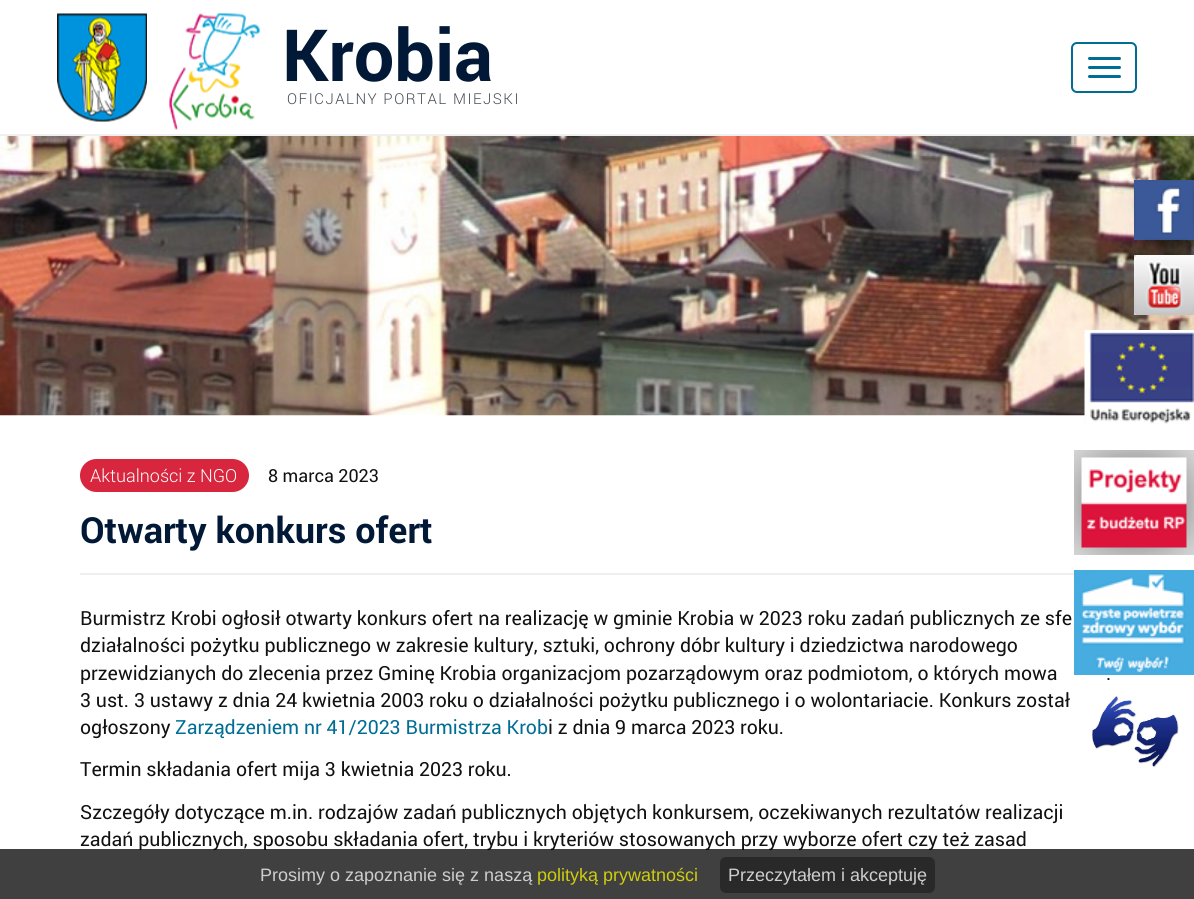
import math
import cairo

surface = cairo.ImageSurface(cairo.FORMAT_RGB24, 1194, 899)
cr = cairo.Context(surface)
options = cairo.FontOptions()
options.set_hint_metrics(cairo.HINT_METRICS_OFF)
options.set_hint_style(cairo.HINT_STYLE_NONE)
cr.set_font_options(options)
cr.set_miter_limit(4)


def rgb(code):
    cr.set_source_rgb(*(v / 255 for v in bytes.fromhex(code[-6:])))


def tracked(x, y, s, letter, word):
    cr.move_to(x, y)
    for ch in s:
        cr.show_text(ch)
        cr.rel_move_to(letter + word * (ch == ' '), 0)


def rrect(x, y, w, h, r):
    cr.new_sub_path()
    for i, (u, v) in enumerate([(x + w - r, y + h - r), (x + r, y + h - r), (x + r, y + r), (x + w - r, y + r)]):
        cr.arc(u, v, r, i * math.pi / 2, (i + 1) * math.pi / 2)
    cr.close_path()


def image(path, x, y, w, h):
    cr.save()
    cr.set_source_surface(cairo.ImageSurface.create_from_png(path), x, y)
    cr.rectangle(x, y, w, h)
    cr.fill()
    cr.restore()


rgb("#ffffff")
cr.paint()
rgb("#efeff0")
cr.rectangle(0, 134, 1194, 2)
cr.fill()
image("img/1.png", 57, 13, 90, 109)
image("img/2.png", 169, 13, 91, 117)
rrect(1072, 43, 64, 49, 5)
rgb("#006d94")
cr.stroke()
rrect(1088, 57, 33, 3, 1.5)
cr.fill()
rrect(1088, 66, 33, 3, 1.5)
cr.fill()
rrect(1088, 75, 33, 3, 1.5)
cr.fill()
image("img/3.png", 0, 136, 1194, 280)
image("img/4.png", 1134, 180, 60, 60)
image("img/5.png", 1134, 255, 60, 60)
image("img/6.png", 1084, 330, 110, 94)
rgb("#d7263d")
rrect(80, 459, 169, 33, 16.5)
cr.fill()
rgb("#efeff0")
cr.rectangle(80, 573, 994, 2)
cr.fill()
image("img/7.png", 1074, 450, 120, 105)
image("img/8.png", 1074, 570, 120, 105)
image("img/9.png", 1092, 695, 87, 73)
cr.select_font_face("Roboto", cairo.FONT_SLANT_NORMAL, cairo.FONT_WEIGHT_BOLD)
cr.set_font_size(72)
rgb("#011936")
cr.move_to(282, 81)
cr.show_text("Krobia")
cr.select_font_face("Roboto Light")
cr.set_font_size(15)
rgb("#444a52")
tracked(287, 104, "OFICJALNY PORTAL MIEJSKI", 1.5, 0)
cr.set_font_size(18)
rgb("#ffffff")
cr.move_to(90, 482)
cr.show_text("Aktualności z NGO")
cr.select_font_face("Roboto")
rgb("#111113")
cr.move_to(268, 482)
cr.show_text("8 marca 2023")
cr.select_font_face("Roboto", cairo.FONT_SLANT_NORMAL, cairo.FONT_WEIGHT_BOLD)
cr.set_font_size(36)
rgb("#011936")
cr.move_to(80, 543)
cr.show_text("Otwarty konkurs ofert")
cr.select_font_face("Roboto")
cr.set_font_size(19.5)
rgb("#111113")
for x, y, s in [
    (80, 625, "Burmistrz Krobi ogłosił otwarty konkurs ofert na realizację w gminie Krobia w 2023 roku zadań publicznych ze sfe"),
    (80, 652, "działalności pożytku publicznego w zakresie kultury, sztuki, ochrony dóbr kultury i dziedzictwa narodowego"),
    (80, 680, "przewidzianych do zlecenia przez Gminę Krobia organizacjom pozarządowym oraz podmiotom, o których mowa"),
    (1106, 680, "."),
    (80, 707, "3 ust. 3 ustawy z dnia 24 kwietnia 2003 roku o działalności pożytku publicznego i o wolontariacie. Konkurs został"),
    (80, 734, "ogłoszony"),
]:
    cr.move_to(x, y)
    cr.show_text(s)
rgb("#006d94")
cr.move_to(175, 734)
cr.show_text("Zarządzeniem nr 41/2023 Burmistrza Krob")
rgb("#111113")
for x, y, s in [
    (548, 734, "i z dnia 9 marca 2023 roku."),
    (80, 776, "Termin składania ofert mija 3 kwietnia 2023 roku."),
    (80, 819, "Szczegóły dotyczące m.in. rodzajów zadań publicznych objętych konkursem, oczekiwanych rezultatów realizacji"),
    (80, 846, "zadań publicznych, sposobu składania ofert, trybu i kryteriów stosowanych przy wyborze ofert czy też zasad"),
]:
    cr.move_to(x, y)
    cr.show_text(s)
cr.set_source_rgba(0, 0, 0, 0.75)
cr.rectangle(0, 849, 1194, 50)
cr.fill()
cr.select_font_face("Liberation Sans")
cr.set_font_size(18)
rgb("#cecece")
cr.move_to(260, 881)
cr.show_text("Prosimy o zapoznanie się z naszą")
rgb("#cdcd0e")
cr.move_to(537, 881)
cr.show_text("polityką prywatności")
cr.set_source_rgba(0.133, 0.133, 0.133, 0.75)
rrect(720, 857, 215, 36, 6)
cr.fill()
rgb("#cecece")
cr.move_to(728, 881)
cr.show_text("Przeczytałem i akceptuję")
surface.write_to_png("page.png")
